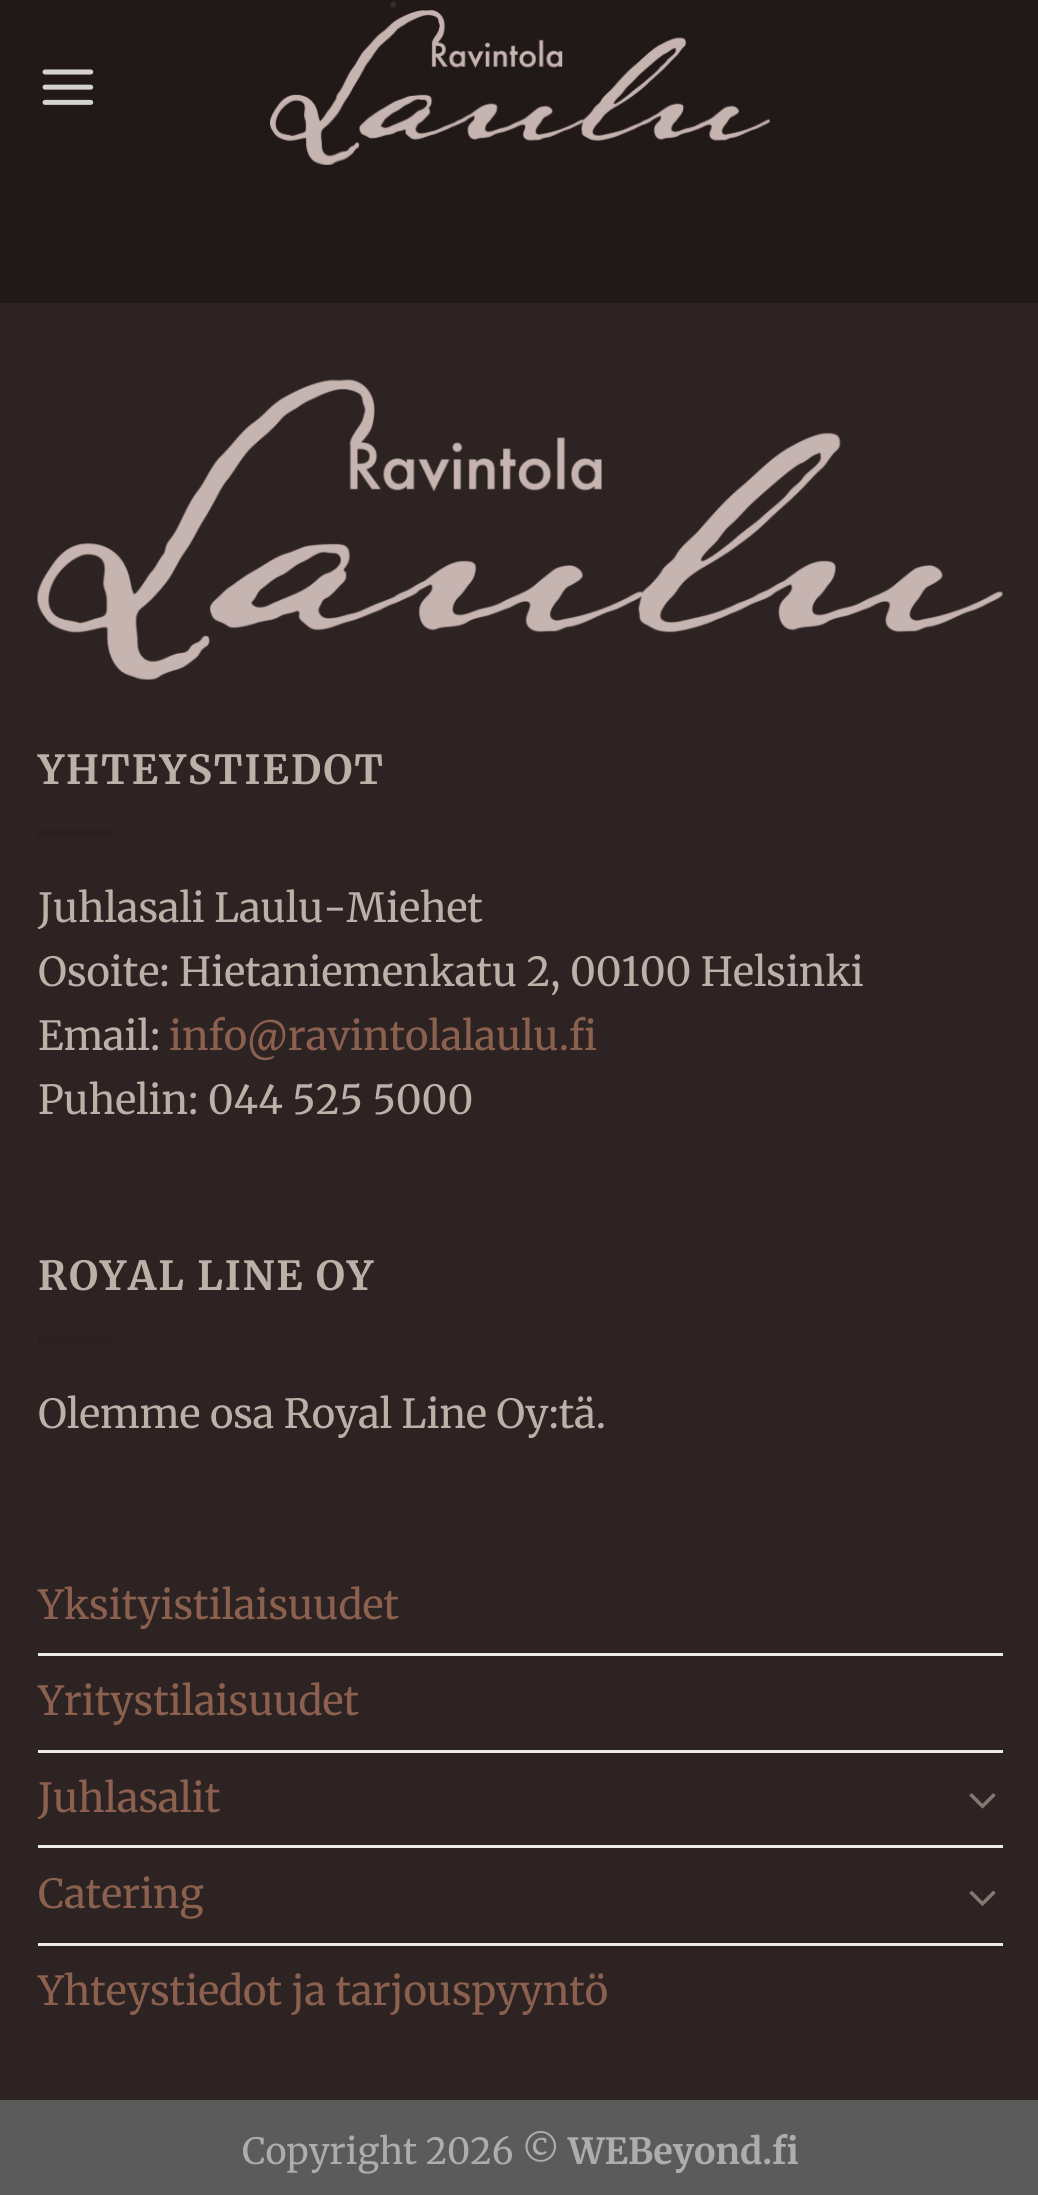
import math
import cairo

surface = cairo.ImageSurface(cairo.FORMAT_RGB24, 1038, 2195)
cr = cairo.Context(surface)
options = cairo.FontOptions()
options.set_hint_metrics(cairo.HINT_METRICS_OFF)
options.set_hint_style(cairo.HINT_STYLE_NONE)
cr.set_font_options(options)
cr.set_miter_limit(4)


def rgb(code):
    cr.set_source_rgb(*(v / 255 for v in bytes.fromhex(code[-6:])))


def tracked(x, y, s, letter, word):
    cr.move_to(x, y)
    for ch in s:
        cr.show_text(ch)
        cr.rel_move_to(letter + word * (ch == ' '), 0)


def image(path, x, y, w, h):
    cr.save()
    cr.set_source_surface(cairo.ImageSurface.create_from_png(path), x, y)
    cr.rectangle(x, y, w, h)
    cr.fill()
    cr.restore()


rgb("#211818")
cr.paint()
image("img/1.png", 42, 69, 52, 36)
image("img/2.png", 270, 10, 500, 155)
rgb("#2d2322")
cr.rectangle(0, 306, 1038, 1794)
cr.fill()
rgb("#2b2120")
cr.rectangle(0, 303, 1038, 3)
cr.fill()
image("img/3.png", 37, 379, 966, 301)
for x, y, w, h, color in [
    (38, 830, 75, 8, "#29201f"),
    (38, 1335, 75, 8, "#29201f"),
    (38, 1653, 965, 3, "#ececec"),
    (38, 1750, 965, 3, "#ececec"),
]:
    rgb(color)
    cr.rectangle(x, y, w, h)
    cr.fill()
image("img/4.png", 969, 1793, 27, 16)
cr.rectangle(38, 1845, 965, 3)
cr.fill()
image("img/5.png", 969, 1890, 27, 16)
cr.rectangle(38, 1943, 965, 3)
cr.fill()
rgb("#5b5b5b")
cr.rectangle(0, 2100, 1038, 95)
cr.fill()
cr.select_font_face("Merriweather")
cr.set_font_size(40)
rgb("#382f2e")
cr.move_to(388, 7)
cr.show_text(".")
cr.select_font_face("Merriweather", cairo.FONT_SLANT_NORMAL, cairo.FONT_WEIGHT_BOLD)
rgb("#bdb0a9")
tracked(38, 784, "YHTEYSTIEDOT", 2, 0)
cr.select_font_face("Merriweather")
for x, y, s in [
    (38, 922, "Juhlasali Laulu-Miehet"),
    (38, 986, "Osoite: Hietaniemenkatu 2, 00100 Helsinki"),
    (38, 1050, "Email:"),
]:
    cr.move_to(x, y)
    cr.show_text(s)
rgb("#8b604f")
cr.move_to(169, 1050)
cr.show_text("info@ravintolalaulu.fi")
rgb("#bdb0a9")
cr.move_to(38, 1114)
cr.show_text("Puhelin: 044 525 5000")
cr.select_font_face("Merriweather", cairo.FONT_SLANT_NORMAL, cairo.FONT_WEIGHT_BOLD)
tracked(38, 1290, "ROYAL LINE OY", 2, 0)
cr.select_font_face("Merriweather")
cr.move_to(38, 1428)
cr.show_text("Olemme osa Royal Line Oy:tä.")
rgb("#8b604f")
for x, y, s in [
    (38, 1619, "Yksityistilaisuudet"),
    (38, 1715, "Yritystilaisuudet"),
    (38, 1812, "Juhlasalit"),
    (38, 1908, "Catering"),
    (38, 2005, "Yhteystiedot ja tarjouspyyntö"),
]:
    cr.move_to(x, y)
    cr.show_text(s)
cr.set_font_size(36)
rgb("#adadad")
cr.move_to(242, 2164)
cr.show_text("Copyright 2026 ©")
cr.select_font_face("Merriweather", cairo.FONT_SLANT_NORMAL, cairo.FONT_WEIGHT_BOLD)
cr.move_to(568, 2164)
cr.show_text("WEBeyond.fi")
surface.write_to_png("page.png")
